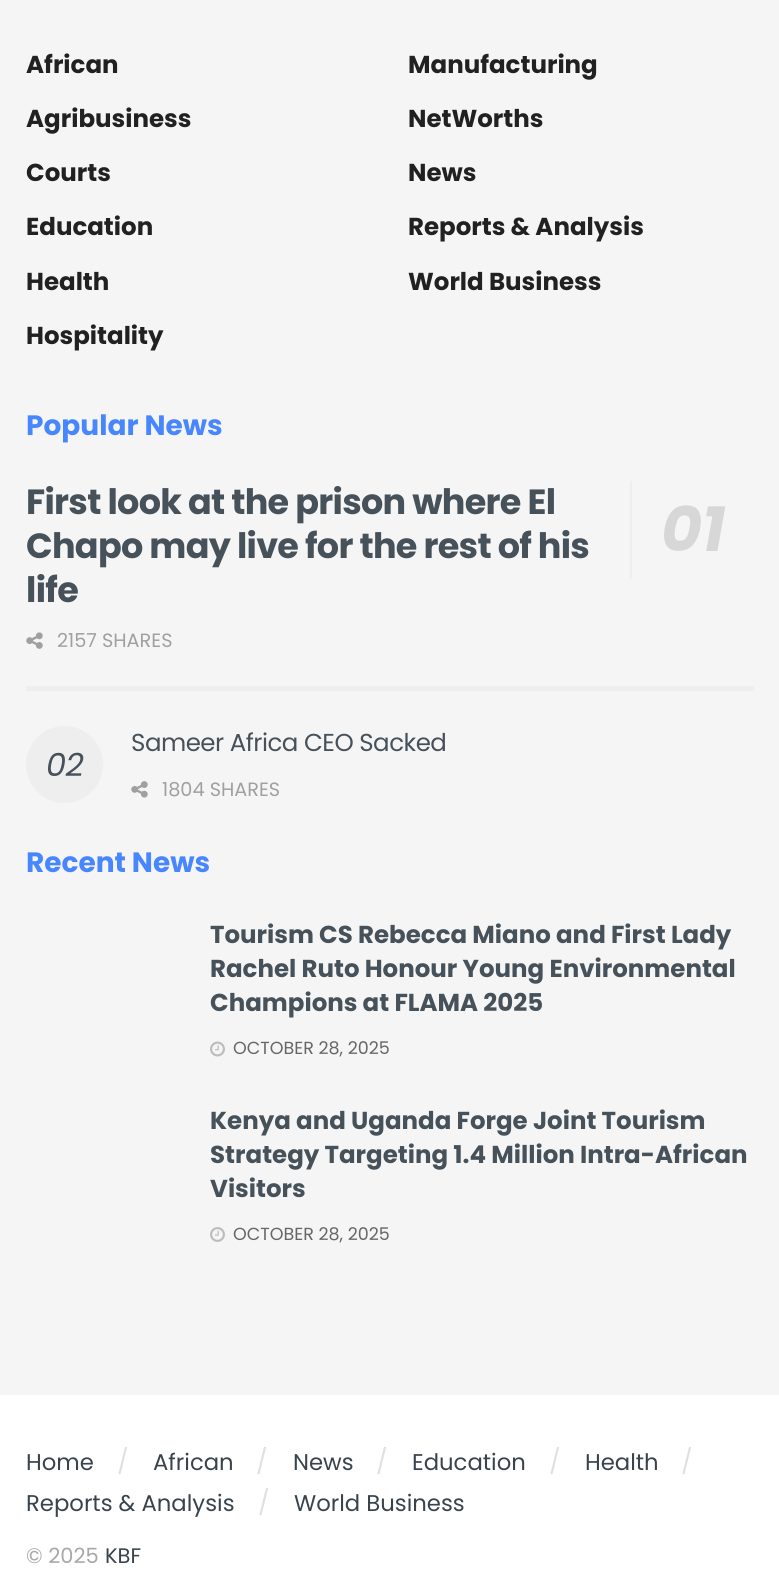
import math
import cairo

surface = cairo.ImageSurface(cairo.FORMAT_RGB24, 779, 1594)
cr = cairo.Context(surface)
options = cairo.FontOptions()
options.set_hint_metrics(cairo.HINT_METRICS_OFF)
options.set_hint_style(cairo.HINT_STYLE_NONE)
cr.set_font_options(options)
cr.set_miter_limit(4)


def rgb(code):
    cr.set_source_rgb(*(v / 255 for v in bytes.fromhex(code[-6:])))


def tracked(x, y, s, letter, word):
    cr.move_to(x, y)
    for ch in s:
        cr.show_text(ch)
        cr.rel_move_to(letter + word * (ch == ' '), 0)


def image(path, x, y, w, h):
    cr.save()
    cr.set_source_surface(cairo.ImageSurface.create_from_png(path), x, y)
    cr.rectangle(x, y, w, h)
    cr.fill()
    cr.restore()


rgb("#ffffff")
cr.paint()
for x, y, w, h, color in [
    (0, 0, 779, 1395, "#f5f5f5"),
    (26, 686, 728, 5, "#eeeeee"),
    (630, 481, 2, 98, "#eeeeee"),
]:
    rgb(color)
    cr.rectangle(x, y, w, h)
    cr.fill()
image("img/1.png", 26, 632, 17, 17)
cr.arc(64.5, 764.5, 38.5, 0, 2 * math.pi)
cr.fill()
image("img/2.png", 131, 781, 17, 17)
image("img/3.png", 210, 1041, 15, 16)
image("img/4.png", 210, 1227, 15, 15)
cr.select_font_face("Poppins", cairo.FONT_SLANT_NORMAL, cairo.FONT_WEIGHT_BOLD)
cr.set_font_size(24.5)
rgb("#212121")
for x, y, s in [
    (26, 73, "African"),
    (408, 73, "Manufacturing"),
    (26, 127, "Agribusiness"),
    (408, 127, "NetWorths"),
    (26, 181, "Courts"),
    (408, 181, "News"),
    (26, 235, "Education"),
    (408, 235, "Reports & Analysis"),
    (26, 290, "Health"),
    (408, 290, "World Business"),
    (26, 344, "Hospitality"),
]:
    cr.move_to(x, y)
    cr.show_text(s)
cr.set_font_size(28)
rgb("#4886ff")
cr.move_to(26, 435)
cr.show_text("Popular News")
cr.set_font_size(35)
rgb("#47515a")
tracked(26, 514, "First look at the prison where El", -0.7, 0)
cr.select_font_face("Poppins", cairo.FONT_SLANT_ITALIC, cairo.FONT_WEIGHT_BOLD)
cr.set_font_size(63)
rgb("#d7d7d7")
tracked(661, 551, "01", -0.7, 0)
cr.select_font_face("Poppins", cairo.FONT_SLANT_NORMAL, cairo.FONT_WEIGHT_BOLD)
cr.set_font_size(35)
rgb("#47515a")
tracked(26, 558, "Chapo may live for the rest of his", -0.7, 0)
tracked(26, 602, "life", -0.7, 0)
cr.select_font_face("Poppins")
cr.set_font_size(19.25)
rgb("#a0a0a0")
cr.move_to(57, 647)
cr.show_text("2157 SHARES")
cr.set_font_size(24.5)
rgb("#47515a")
tracked(131, 751, "Sameer Africa CEO Sacked", -0.5, 0)
cr.select_font_face("Poppins", cairo.FONT_SLANT_ITALIC)
cr.set_font_size(32)
tracked(46, 776, "02", -0.5, 0)
cr.select_font_face("Poppins")
cr.set_font_size(19.25)
rgb("#a0a0a0")
cr.move_to(162, 796)
cr.show_text("1804 SHARES")
cr.select_font_face("Poppins", cairo.FONT_SLANT_NORMAL, cairo.FONT_WEIGHT_BOLD)
cr.set_font_size(28)
rgb("#4886ff")
cr.move_to(26, 872)
cr.show_text("Recent News")
cr.set_font_size(24.5)
rgb("#47515a")
for x, y, s in [
    (210, 943, "Tourism CS Rebecca Miano and First Lady"),
    (210, 977, "Rachel Ruto Honour Young Environmental"),
    (210, 1011, "Champions at FLAMA 2025"),
]:
    cr.move_to(x, y)
    cr.show_text(s)
cr.select_font_face("Poppins")
cr.set_font_size(17.5)
rgb("#666666")
cr.move_to(233, 1054)
cr.show_text("OCTOBER 28, 2025")
cr.select_font_face("Poppins", cairo.FONT_SLANT_NORMAL, cairo.FONT_WEIGHT_BOLD)
cr.set_font_size(24.5)
rgb("#47515a")
for x, y, s in [
    (210, 1129, "Kenya and Uganda Forge Joint Tourism"),
    (210, 1163, "Strategy Targeting 1.4 Million Intra-African"),
    (210, 1197, "Visitors"),
]:
    cr.move_to(x, y)
    cr.show_text(s)
cr.select_font_face("Poppins")
cr.set_font_size(17.5)
rgb("#666666")
cr.move_to(233, 1240)
cr.show_text("OCTOBER 28, 2025")
cr.set_font_size(22.75)
rgb("#39434d")
cr.move_to(26, 1470)
cr.show_text("Home")
cr.set_font_size(24.5)
rgb("#e0e0e0")
cr.move_to(117, 1470)
cr.show_text("/")
cr.set_font_size(22.75)
rgb("#39434d")
cr.move_to(153, 1470)
cr.show_text("African")
cr.set_font_size(24.5)
rgb("#e0e0e0")
cr.move_to(256, 1470)
cr.show_text("/")
cr.set_font_size(22.75)
rgb("#39434d")
cr.move_to(293, 1470)
cr.show_text("News")
cr.set_font_size(24.5)
rgb("#e0e0e0")
cr.move_to(376, 1470)
cr.show_text("/")
cr.set_font_size(22.75)
rgb("#39434d")
cr.move_to(412, 1470)
cr.show_text("Education")
cr.set_font_size(24.5)
rgb("#e0e0e0")
cr.move_to(549, 1470)
cr.show_text("/")
cr.set_font_size(22.75)
rgb("#39434d")
cr.move_to(585, 1470)
cr.show_text("Health")
cr.set_font_size(24.5)
rgb("#e0e0e0")
cr.move_to(681, 1470)
cr.show_text("/")
cr.set_font_size(22.75)
rgb("#39434d")
cr.move_to(26, 1511)
cr.show_text("Reports & Analysis")
cr.set_font_size(24.5)
rgb("#e0e0e0")
cr.move_to(258, 1511)
cr.show_text("/")
cr.set_font_size(22.75)
rgb("#39434d")
cr.move_to(294, 1511)
cr.show_text("World Business")
cr.set_font_size(21)
rgb("#a8a8aa")
cr.move_to(26, 1563)
cr.show_text("© 2025")
rgb("#39434d")
cr.move_to(105, 1563)
cr.show_text("KBF")
surface.write_to_png("page.png")
